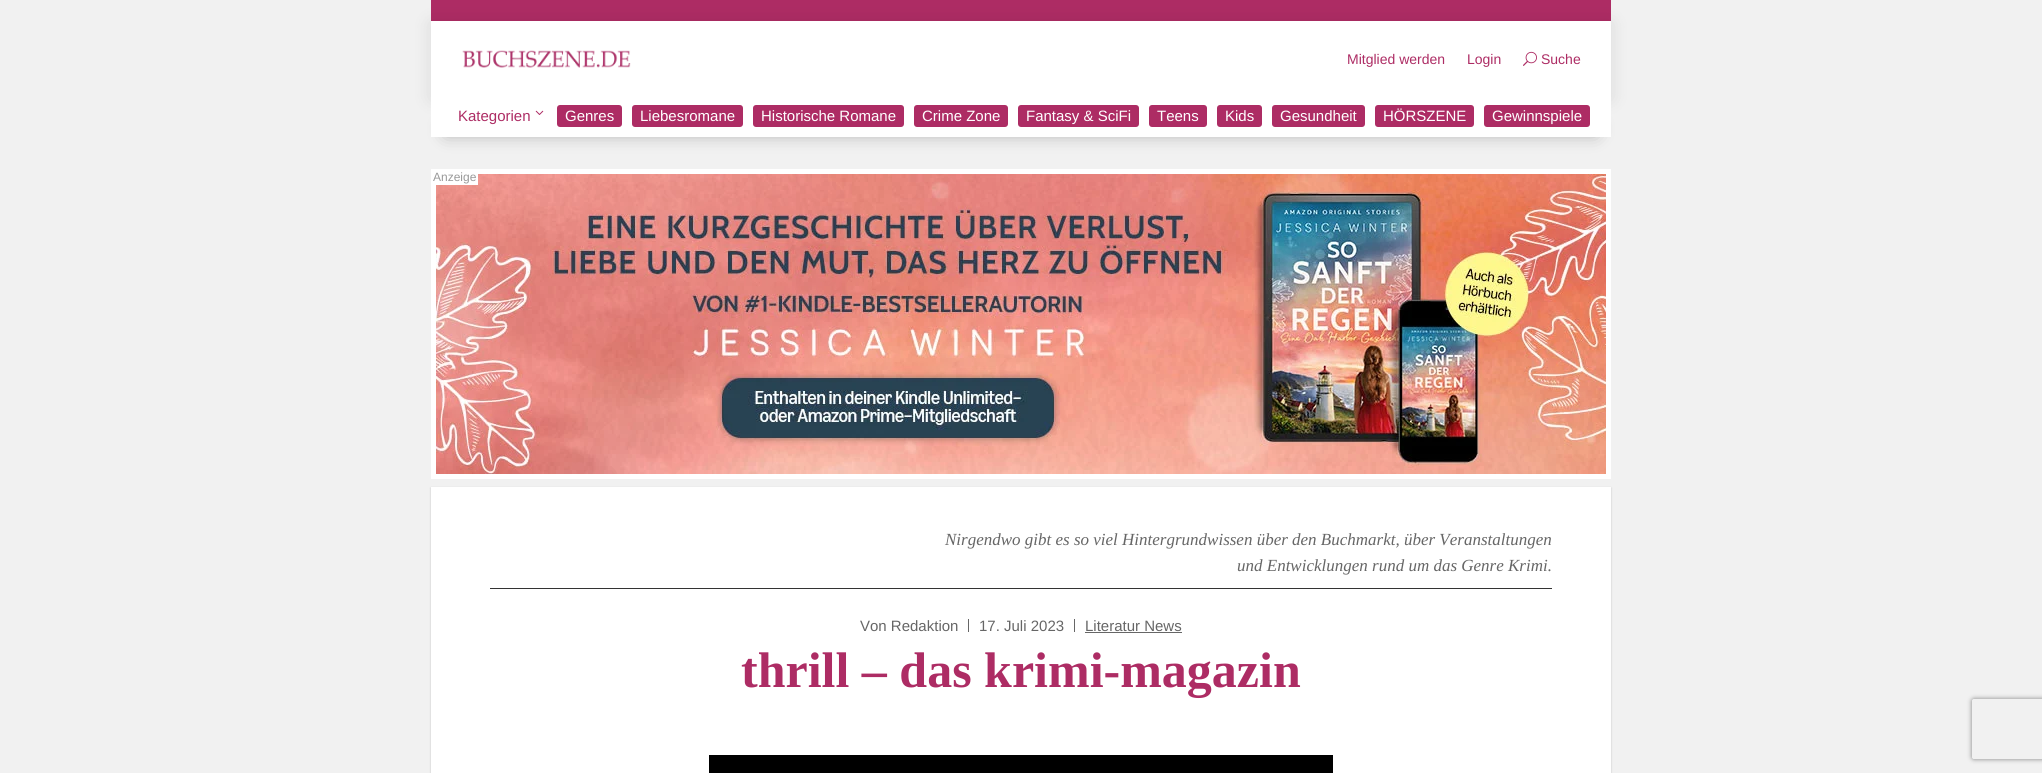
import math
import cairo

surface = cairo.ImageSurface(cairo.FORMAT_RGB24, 2042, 773)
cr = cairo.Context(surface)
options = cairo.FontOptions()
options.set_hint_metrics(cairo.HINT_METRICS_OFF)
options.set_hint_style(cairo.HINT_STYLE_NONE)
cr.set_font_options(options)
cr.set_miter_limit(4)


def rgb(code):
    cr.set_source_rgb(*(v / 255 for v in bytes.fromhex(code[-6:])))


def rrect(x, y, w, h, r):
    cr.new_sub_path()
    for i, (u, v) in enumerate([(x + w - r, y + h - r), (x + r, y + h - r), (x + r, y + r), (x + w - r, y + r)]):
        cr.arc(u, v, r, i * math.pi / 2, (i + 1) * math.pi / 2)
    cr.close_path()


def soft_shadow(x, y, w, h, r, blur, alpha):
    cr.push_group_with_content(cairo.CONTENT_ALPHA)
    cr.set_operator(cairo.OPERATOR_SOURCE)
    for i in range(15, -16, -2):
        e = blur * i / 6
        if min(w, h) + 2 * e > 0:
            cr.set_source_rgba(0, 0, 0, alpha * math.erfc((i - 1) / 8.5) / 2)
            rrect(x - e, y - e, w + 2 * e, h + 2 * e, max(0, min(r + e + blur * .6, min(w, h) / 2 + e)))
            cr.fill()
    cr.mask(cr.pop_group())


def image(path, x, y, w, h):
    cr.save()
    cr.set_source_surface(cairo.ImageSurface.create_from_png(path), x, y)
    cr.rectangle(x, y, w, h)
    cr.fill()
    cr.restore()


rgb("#f1f1f1")
cr.paint()
rgb("#ad2c64")
cr.rectangle(431, 0, 1180, 21)
cr.fill()
rgb("#000000")
soft_shadow(431, 23, 1180, 76, 0, 9, 0.1)
rgb("#ffffff")
cr.rectangle(431, 21, 1180, 76)
cr.fill()
image("img/1.png", 462, 50, 169, 18)
image("img/2.png", 1523, 51, 14, 15)
rgb("#000000")
soft_shadow(446, 124, 1150, 10, 0, 9, 0.3)
rgb("#ffffff")
cr.rectangle(431, 97, 1180, 40)
cr.fill()
image("img/3.png", 535, 110, 9, 5)
rgb("#ad2c64")
rrect(557, 105, 65, 22, 3)
cr.fill()
rrect(632, 105, 111, 22, 3)
cr.fill()
rrect(753, 105, 151, 22, 3)
cr.fill()
rrect(914, 105, 94, 22, 3)
cr.fill()
rrect(1018, 105, 121, 22, 3)
cr.fill()
rrect(1149, 105, 58, 22, 3)
cr.fill()
rrect(1217, 105, 45, 22, 3)
cr.fill()
rrect(1272, 105, 93, 22, 3)
cr.fill()
rrect(1375, 105, 99, 22, 3)
cr.fill()
rrect(1484, 105, 106, 22, 3)
cr.fill()
cr.rectangle(433.5, 171.5, 1175, 305)
rgb("#ffffff")
cr.set_line_width(5)
cr.stroke()
image("img/4.png", 436, 174, 1170, 300)
cr.rectangle(436, 174, 42, 11)
cr.fill()
rgb("#000000")
soft_shadow(431, 488, 1180, 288, 0, 1, 0.2)
for x, y, w, h, color in [
    (431, 487, 1180, 286, "#ffffff"),
    (490, 588, 1062, 1, "#333333"),
    (968, 619, 1, 13, "#666666"),
    (1074, 619, 1, 13, "#666666"),
    (1085, 632, 97, 1, "#666666"),
    (709, 755, 624, 18, "#000000"),
]:
    rgb(color)
    cr.rectangle(x, y, w, h)
    cr.fill()
cr.save()
cr.set_fill_rule(cairo.FILL_RULE_EVEN_ODD)
cr.new_path()
cr.move_to(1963, 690)
cr.line_to(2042, 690)
cr.line_to(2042, 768)
cr.line_to(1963, 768)
cr.close_path()
cr.move_to(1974, 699)
cr.line_to(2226, 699)
cr.curve_to(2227, 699, 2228, 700, 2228, 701)
cr.line_to(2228, 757)
cr.curve_to(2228, 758, 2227, 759, 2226, 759)
cr.line_to(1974, 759)
cr.curve_to(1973, 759, 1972, 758, 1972, 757)
cr.line_to(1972, 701)
cr.curve_to(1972, 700, 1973, 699, 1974, 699)
cr.close_path()
cr.clip()
rgb("#808080")
soft_shadow(1972, 699, 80, 60, 2, 2.5, 1)
cr.restore()
cr.select_font_face("Liberation Sans")
cr.set_font_size(14)
rgb("#ad2c64")
for x, y, s in [
    (1347, 64, "Mitglied werden"),
    (1467, 64, "Login"),
    (1541, 64, "Suche"),
]:
    cr.move_to(x, y)
    cr.show_text(s)
cr.set_font_size(15)
cr.move_to(458, 121)
cr.show_text("Kategorien")
rgb("#ffffff")
for x, y, s in [
    (565, 121, "Genres"),
    (640, 121, "Liebesromane"),
    (761, 121, "Historische Romane"),
    (922, 121, "Crime Zone"),
    (1026, 121, "Fantasy & SciFi"),
    (1157, 121, "Teens"),
    (1225, 121, "Kids"),
    (1280, 121, "Gesundheit"),
    (1383, 121, "HÖRSZENE"),
    (1492, 121, "Gewinnspiele"),
]:
    cr.move_to(x, y)
    cr.show_text(s)
cr.set_font_size(12)
rgb("#999999")
cr.move_to(433, 181)
cr.show_text("Anzeige")
cr.select_font_face("Liberation Serif", cairo.FONT_SLANT_ITALIC)
cr.set_font_size(17)
rgb("#666666")
cr.move_to(945, 545)
cr.show_text("Nirgendwo gibt es so viel Hintergrundwissen über den Buchmarkt, über Veranstaltungen")
cr.move_to(1237, 571)
cr.show_text("und Entwicklungen rund um das Genre Krimi.")
cr.select_font_face("Liberation Sans")
cr.set_font_size(15)
for x, y, s in [
    (860, 631, "Von Redaktion"),
    (979, 631, "17. Juli 2023"),
    (1085, 631, "Literatur News"),
]:
    cr.move_to(x, y)
    cr.show_text(s)
cr.select_font_face("Liberation Serif", cairo.FONT_SLANT_NORMAL, cairo.FONT_WEIGHT_BOLD)
cr.set_font_size(50)
rgb("#ad2c64")
cr.move_to(741, 687)
cr.show_text("thrill – das krimi-magazin")
surface.write_to_png("page.png")
